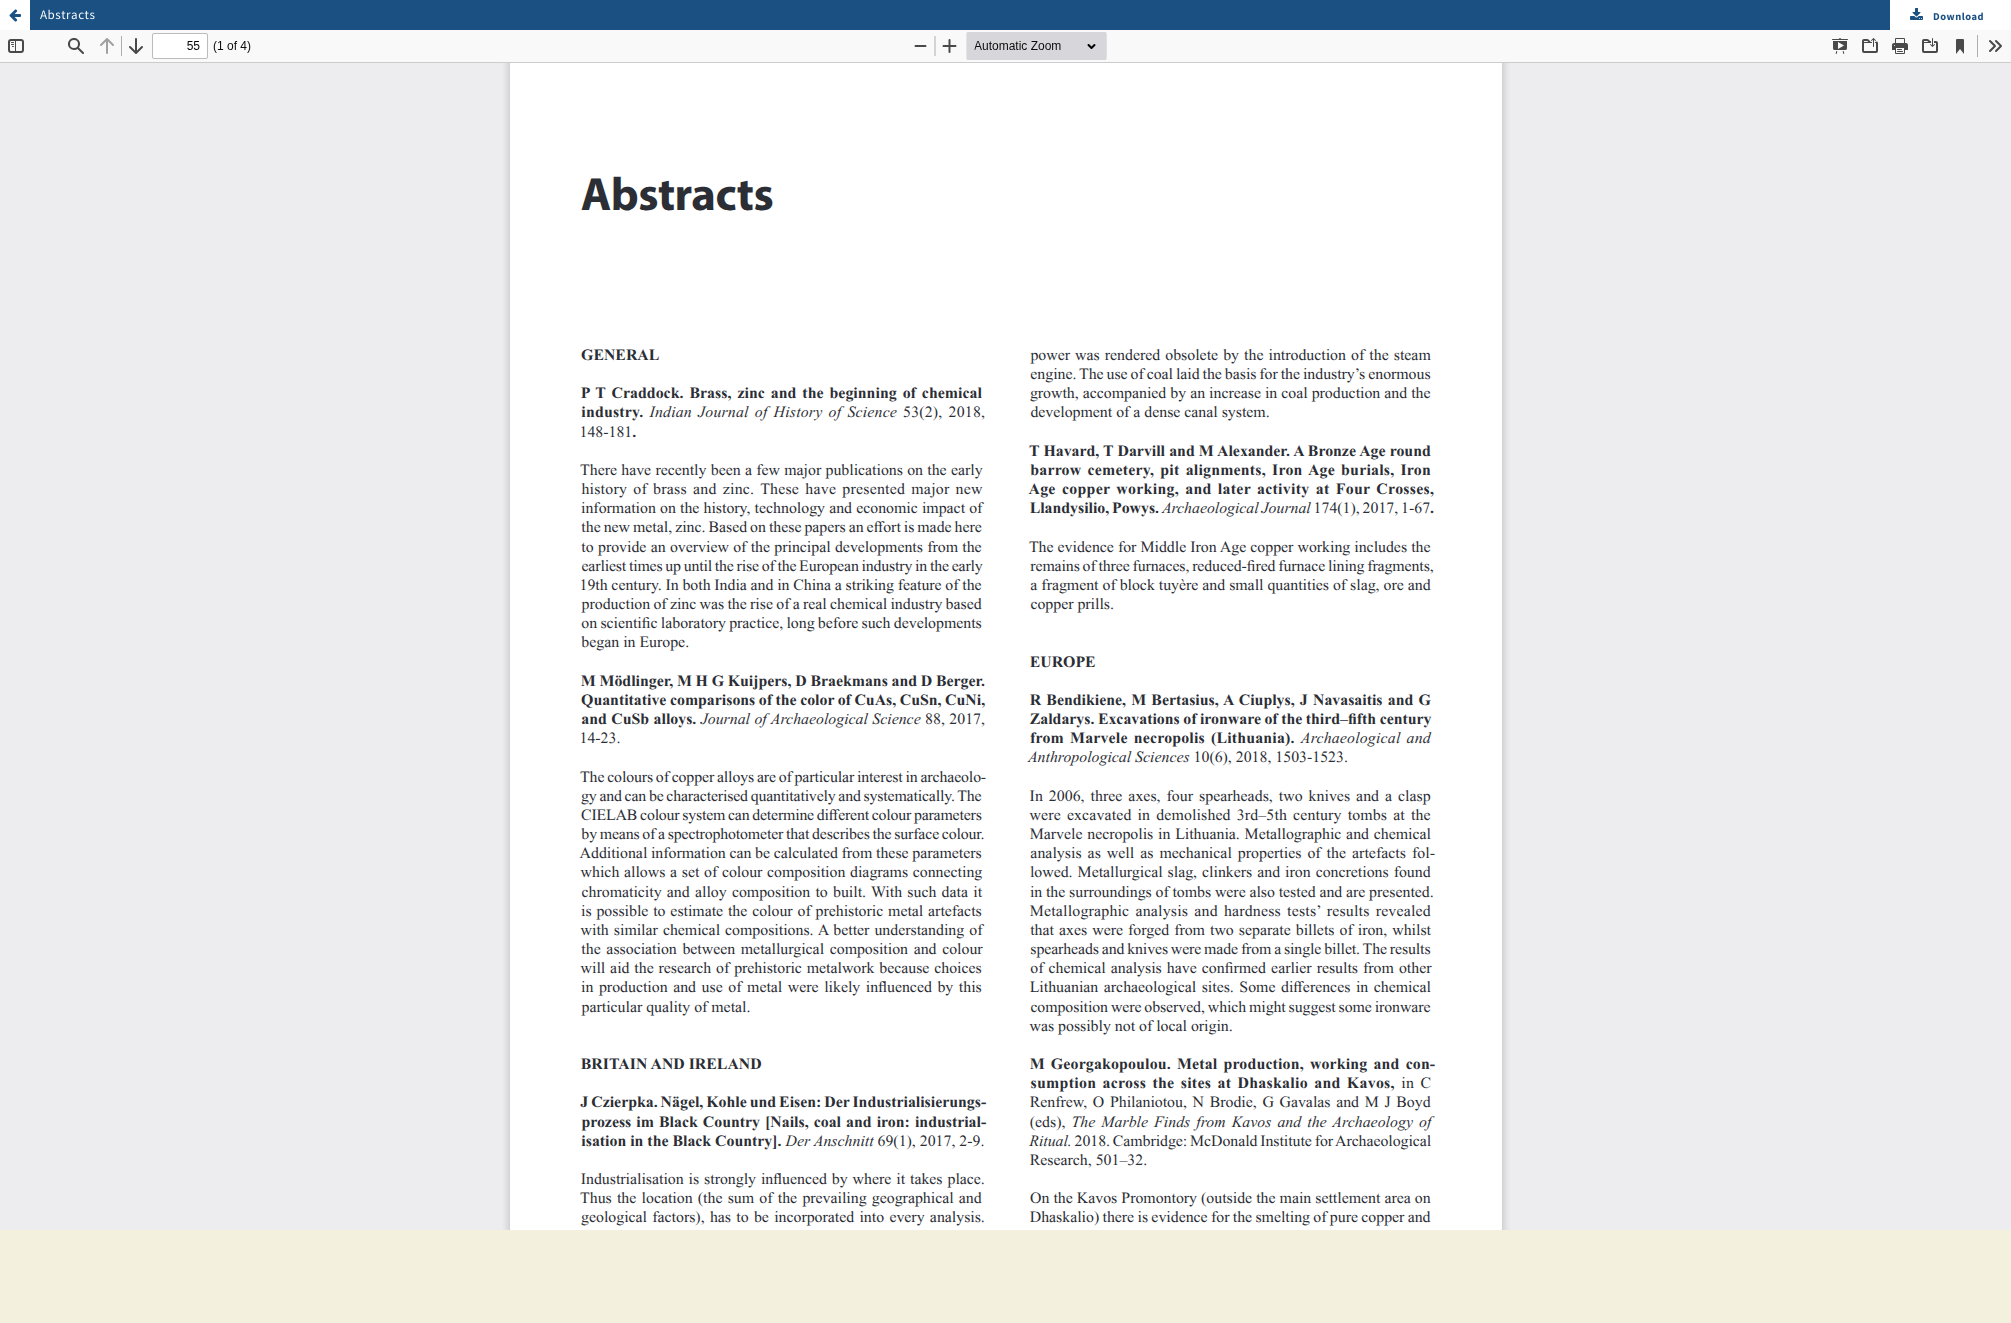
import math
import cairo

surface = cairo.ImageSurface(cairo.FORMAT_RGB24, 2011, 1323)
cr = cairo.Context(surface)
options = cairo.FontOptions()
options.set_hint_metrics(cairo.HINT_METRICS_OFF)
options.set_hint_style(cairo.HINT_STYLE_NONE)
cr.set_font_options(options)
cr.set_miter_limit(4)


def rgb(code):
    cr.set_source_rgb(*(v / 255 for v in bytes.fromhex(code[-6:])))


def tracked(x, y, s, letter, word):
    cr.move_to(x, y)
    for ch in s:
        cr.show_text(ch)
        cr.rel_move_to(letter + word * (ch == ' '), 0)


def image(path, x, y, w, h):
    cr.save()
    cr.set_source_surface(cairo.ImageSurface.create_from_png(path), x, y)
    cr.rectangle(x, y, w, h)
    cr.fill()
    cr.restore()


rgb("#f3f0dd")
cr.paint()
rgb("#1b5083")
cr.rectangle(30, 0, 1860, 30)
cr.fill()
rgb("#ffffff")
cr.rectangle(0, 0, 30, 30)
cr.fill()
image("img/1.png", 9, 9, 12, 13)
cr.rectangle(1890, 0, 121, 30)
cr.fill()
image("img/2.png", 1910, 8, 13, 12)
image("img/3.png", 0, 30, 2011, 1200)
cr.select_font_face("Source Sans Pro")
cr.set_font_size(13)
tracked(40, 19, "Abstracts", 0.5, 0)
cr.select_font_face("Source Sans Pro", cairo.FONT_SLANT_NORMAL, cairo.FONT_WEIGHT_BOLD)
cr.set_font_size(10.5)
rgb("#1b5083")
tracked(1933, 20, "Download", 0.5, 0)
surface.write_to_png("page.png")
